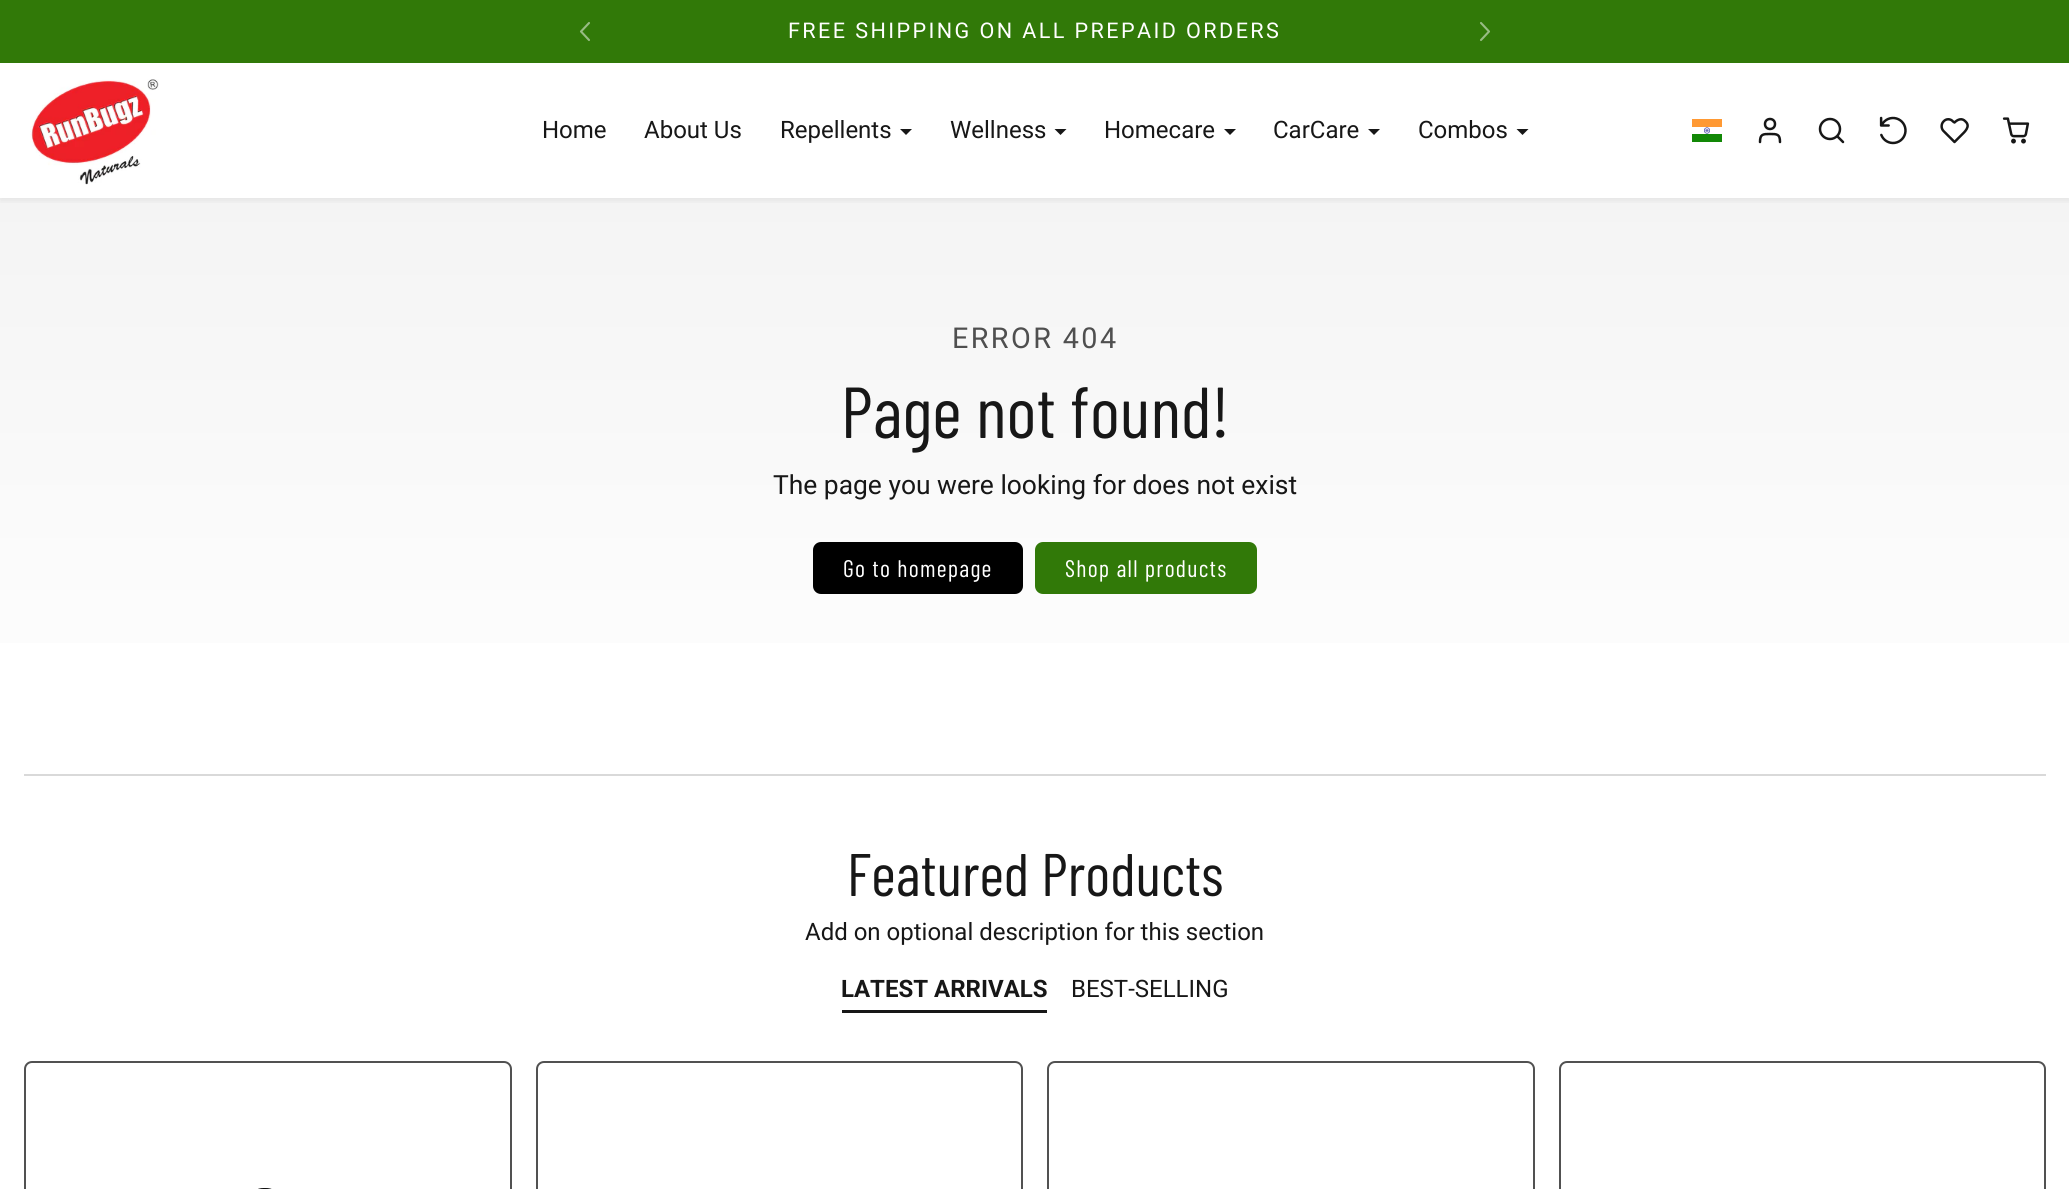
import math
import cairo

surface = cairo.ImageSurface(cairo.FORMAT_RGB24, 2069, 1189)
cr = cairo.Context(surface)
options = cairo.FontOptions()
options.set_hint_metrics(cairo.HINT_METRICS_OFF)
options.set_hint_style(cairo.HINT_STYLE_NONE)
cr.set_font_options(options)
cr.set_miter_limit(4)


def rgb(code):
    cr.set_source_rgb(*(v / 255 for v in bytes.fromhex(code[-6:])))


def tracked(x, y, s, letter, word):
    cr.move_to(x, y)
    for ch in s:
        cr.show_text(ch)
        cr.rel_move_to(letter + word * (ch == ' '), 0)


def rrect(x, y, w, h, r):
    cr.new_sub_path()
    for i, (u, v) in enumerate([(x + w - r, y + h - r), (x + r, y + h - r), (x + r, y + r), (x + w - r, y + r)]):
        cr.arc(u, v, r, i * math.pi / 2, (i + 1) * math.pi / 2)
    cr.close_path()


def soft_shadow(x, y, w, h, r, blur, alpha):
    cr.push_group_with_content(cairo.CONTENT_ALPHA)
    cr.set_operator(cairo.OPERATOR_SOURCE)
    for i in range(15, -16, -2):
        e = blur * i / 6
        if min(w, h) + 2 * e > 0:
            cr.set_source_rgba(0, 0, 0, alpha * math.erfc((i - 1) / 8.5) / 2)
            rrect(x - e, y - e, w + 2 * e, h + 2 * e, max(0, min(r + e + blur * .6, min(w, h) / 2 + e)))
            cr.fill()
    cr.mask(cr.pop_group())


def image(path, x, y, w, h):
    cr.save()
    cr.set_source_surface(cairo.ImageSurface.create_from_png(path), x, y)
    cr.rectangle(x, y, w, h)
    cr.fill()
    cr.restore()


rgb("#ffffff")
cr.paint()
rgb("#317908")
cr.rectangle(0, 0, 2069, 63)
cr.fill()
cr.new_path()
cr.move_to(589, 40)
cr.line_to(581, 31.5)
cr.line_to(589, 23)
rgb("#98bc84")
cr.set_line_width(2.1)
cr.set_line_cap(cairo.LINE_CAP_ROUND)
cr.set_line_join(cairo.LINE_JOIN_ROUND)
cr.stroke()
cr.new_path()
cr.move_to(1481, 40)
cr.line_to(1489, 31.5)
cr.line_to(1481, 23)
cr.stroke()
gradient = cairo.LinearGradient(1035, 198, 1035, 774)
gradient.add_color_stop_rgba(0, 0.957, 0.957, 0.957, 1)
gradient.add_color_stop_rgba(1, 1, 1, 1, 1)
cr.set_source(gradient)
cr.rectangle(0, 198, 2069, 445)
cr.fill()
cr.save()
cr.rectangle(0, 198, 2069, 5)
cr.clip()
rgb("#171717")
soft_shadow(0, 66, 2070, 135, 0, 3, 0.07)
cr.restore()
image("img/1.png", 30, 79, 129, 106)
rgb("#171717")
cr.new_path()
cr.move_to(900, 129)
cr.line_to(912, 129)
cr.line_to(906, 135)
cr.close_path()
cr.fill()
cr.new_path()
cr.move_to(1054.5, 129)
cr.line_to(1066.5, 129)
cr.line_to(1060.5, 135)
cr.close_path()
cr.fill()
cr.new_path()
cr.move_to(1224, 129)
cr.line_to(1236, 129)
cr.line_to(1230, 135)
cr.close_path()
cr.fill()
cr.new_path()
cr.move_to(1368, 129)
cr.line_to(1380, 129)
cr.line_to(1374, 135)
cr.close_path()
cr.fill()
cr.new_path()
cr.move_to(1516.5, 129)
cr.line_to(1528.5, 129)
cr.line_to(1522.5, 135)
cr.close_path()
cr.fill()
image("img/2.png", 1692, 119, 30, 23)
cr.new_path()
cr.move_to(1780, 142)
cr.curve_to(1780, 134, 1777, 134, 1770, 134)
cr.curve_to(1763, 134, 1760, 134, 1760, 142)
cr.set_line_width(2.5)
cr.stroke()
cr.arc(1770, 124, 5, 0, 2 * math.pi)
cr.set_line_cap(cairo.LINE_CAP_BUTT)
cr.set_line_join(cairo.LINE_JOIN_MITER)
cr.stroke()
cr.arc(1830, 129, 10, 0, 2 * math.pi)
cr.stroke()
cr.new_path()
cr.move_to(1843, 142)
cr.line_to(1837.5, 136.5)
cr.set_line_cap(cairo.LINE_CAP_ROUND)
cr.set_line_join(cairo.LINE_JOIN_ROUND)
cr.stroke()
image("img/3.png", 1879, 116, 28, 29)
cr.new_path()
cr.move_to(1965.5, 121.5)
cr.curve_to(1962, 117.5, 1957.5, 119.5, 1954.5, 122.5)
cr.line_to(1953, 121.5)
cr.curve_to(1950.5, 118.5, 1946, 118.5, 1943.5, 121.5)
cr.curve_to(1941, 124, 1941, 128.5, 1943.5, 131)
cr.line_to(1954.5, 142)
cr.line_to(1961, 135.5)
cr.curve_to(1964.5, 132, 1971, 126.5, 1965.5, 121.5)
cr.close_path()
cr.stroke()
image("img/4.png", 2002, 117, 28, 27)
rgb("#000000")
rrect(814, 543, 208, 50, 7)
cr.fill_preserve()
cr.set_line_width(2)
cr.set_line_cap(cairo.LINE_CAP_BUTT)
cr.set_line_join(cairo.LINE_JOIN_MITER)
cr.stroke()
rgb("#317908")
rrect(1036, 543, 220, 50, 7)
cr.fill_preserve()
cr.stroke()
rgb("#d9d9d9")
cr.rectangle(24, 774, 2022, 2)
cr.fill()
rgb("#171717")
cr.rectangle(842, 1010, 205, 3)
cr.fill()
rrect(25, 1062, 486, 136, 7)
rgb("#515151")
cr.stroke()
image("img/5.png", 258, 1188, 14, 1)
rrect(537, 1062, 485, 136, 7)
cr.stroke()
rrect(1048, 1062, 486, 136, 7)
cr.stroke()
rrect(1560, 1062, 485, 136, 7)
cr.stroke()
cr.select_font_face("Roboto")
cr.set_font_size(21.6)
rgb("#ffffff")
tracked(788, 38, "FREE SHIPPING ON ALL PREPAID ORDERS", 2.4, 0)
cr.set_font_size(24)
rgb("#171717")
for x, y, s in [
    (542, 138, "Home"),
    (644, 138, "About Us"),
    (780, 138, "Repellents"),
    (950, 138, "Wellness"),
    (1104, 138, "Homecare"),
    (1273, 138, "CarCare"),
    (1418, 138, "Combos"),
]:
    cr.move_to(x, y)
    cr.show_text(s)
cr.set_font_size(28.75)
rgb("#4f4f4f")
tracked(952, 348, "ERROR 404", 2.4, 0)
cr.select_font_face("Barlow Condensed")
cr.set_font_size(72)
rgb("#171717")
cr.move_to(841, 438)
cr.show_text("Page not found!")
cr.select_font_face("Roboto")
cr.set_font_size(26.4)
cr.move_to(773, 494)
cr.show_text("The page you were looking for does not exist")
cr.select_font_face("Barlow Condensed")
cr.set_font_size(24)
rgb("#ffffff")
tracked(843, 577, "Go to homepage", 1.25, 0)
tracked(1065, 577, "Shop all products", 1.25, 0)
cr.set_font_size(60)
rgb("#171717")
cr.move_to(847, 896)
cr.show_text("Featured Products")
cr.select_font_face("Roboto")
cr.set_font_size(24)
cr.move_to(805, 940)
cr.show_text("Add on optional description for this section")
cr.select_font_face("Roboto", cairo.FONT_SLANT_NORMAL, cairo.FONT_WEIGHT_BOLD)
cr.move_to(841, 997)
cr.show_text("LATEST ARRIVALS")
cr.select_font_face("Roboto")
cr.move_to(1071, 997)
cr.show_text("BEST-SELLING")
surface.write_to_png("page.png")
